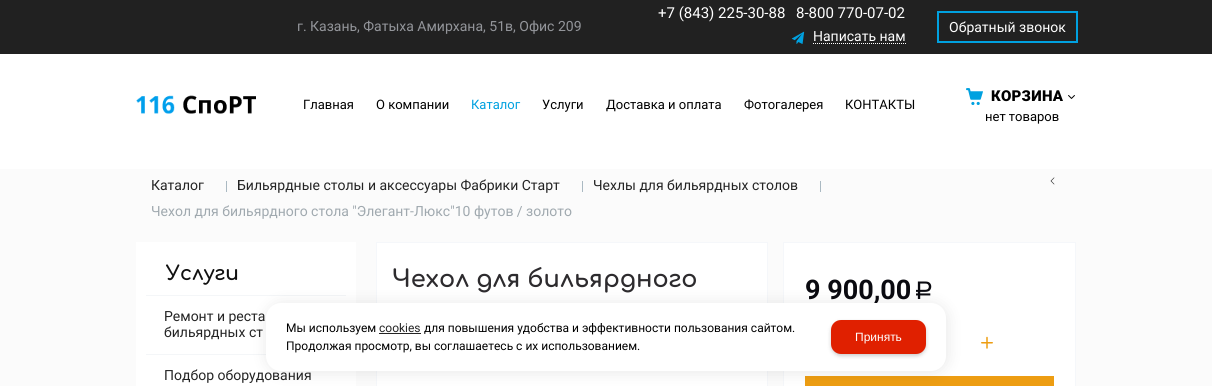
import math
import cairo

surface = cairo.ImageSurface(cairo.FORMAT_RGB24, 1212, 386)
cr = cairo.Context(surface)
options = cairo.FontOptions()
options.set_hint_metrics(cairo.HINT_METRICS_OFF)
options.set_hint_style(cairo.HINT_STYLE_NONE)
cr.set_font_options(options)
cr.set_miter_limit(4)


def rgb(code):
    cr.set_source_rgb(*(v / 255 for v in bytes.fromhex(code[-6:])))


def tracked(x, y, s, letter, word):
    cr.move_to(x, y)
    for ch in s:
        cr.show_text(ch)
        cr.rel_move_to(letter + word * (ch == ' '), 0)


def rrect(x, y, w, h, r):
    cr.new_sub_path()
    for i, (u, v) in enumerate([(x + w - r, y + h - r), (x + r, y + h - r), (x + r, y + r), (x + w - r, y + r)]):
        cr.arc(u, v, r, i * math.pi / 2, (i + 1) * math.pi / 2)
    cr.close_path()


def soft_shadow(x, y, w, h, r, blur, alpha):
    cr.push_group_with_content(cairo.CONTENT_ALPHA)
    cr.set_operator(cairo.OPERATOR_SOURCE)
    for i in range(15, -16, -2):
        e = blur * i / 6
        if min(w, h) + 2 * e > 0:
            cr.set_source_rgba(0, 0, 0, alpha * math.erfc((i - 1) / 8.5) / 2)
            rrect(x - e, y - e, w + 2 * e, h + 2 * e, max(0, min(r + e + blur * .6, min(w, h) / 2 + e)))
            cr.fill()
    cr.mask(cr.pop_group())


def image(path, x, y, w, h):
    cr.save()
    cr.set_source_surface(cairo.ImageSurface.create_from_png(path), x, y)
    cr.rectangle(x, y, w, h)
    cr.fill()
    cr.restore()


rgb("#ffffff")
cr.paint()
rgb("#212121")
cr.rectangle(0, 0, 1212, 54)
cr.fill()
image("img/1.png", 791, 31, 14, 13)
cr.new_path()
cr.move_to(813, 43.5)
cr.line_to(906, 43.5)
rgb("#ffffff")
cr.set_line_width(1)
cr.set_dash([1, 1])
cr.stroke()
cr.rectangle(938, 12, 139, 30)
rgb("#00a1e0")
cr.set_line_width(2)
cr.set_dash([])
cr.stroke()
image("img/2.png", 136, 95, 120, 19)
image("img/3.png", 966, 88, 17, 17)
image("img/4.png", 1068, 95, 7, 4)
for x, y, w, h, color in [
    (0, 169, 1212, 217, "#fbfbfb"),
    (226, 181, 1, 11, "#aab9c2"),
    (582, 181, 1, 11, "#aab9c2"),
    (820, 181, 1, 11, "#aab9c2"),
]:
    rgb(color)
    cr.rectangle(x, y, w, h)
    cr.fill()
image("img/5.png", 1050, 177, 5, 8)
for x, y, w, h, color in [
    (136, 242, 220, 144, "#ffffff"),
    (146, 295, 200, 1, "#f4f6f8"),
    (146, 354, 120, 1, "#f4f6f8"),
]:
    rgb(color)
    cr.rectangle(x, y, w, h)
    cr.fill()
rgb("#ffffff")
cr.rectangle(376.5, 242.5, 391, 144)
cr.fill_preserve()
rgb("#f5f7fa")
cr.set_line_width(1)
cr.stroke()
rgb("#ffffff")
cr.rectangle(783.5, 242.5, 292, 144)
cr.fill_preserve()
rgb("#f5f7fa")
cr.stroke()
image("img/6.png", 981, 336, 12, 13)
rgb("#ed9d12")
cr.rectangle(805, 376, 249, 10)
cr.fill()
rgb("#000000")
soft_shadow(267, 304, 680, 68, 15, 7.5, 0.1)
cr.select_font_face("Roboto")
cr.set_font_size(14)
rgb("#93959a")
cr.move_to(297, 31)
cr.show_text("г. Казань, Фатыха Амирхана, 51в, Офис 209")
cr.set_font_size(15)
rgb("#ffffff")
cr.move_to(658, 18)
cr.show_text("+7 (843) 225-30-88")
cr.move_to(796, 18)
cr.show_text("8-800 770-07-02")
cr.set_font_size(14)
cr.move_to(813, 41)
cr.show_text("Написать нам")
cr.move_to(949, 32)
cr.show_text("Обратный звонок")
cr.set_font_size(13)
rgb("#000000")
cr.move_to(303, 109)
cr.show_text("Главная")
cr.move_to(376, 109)
cr.show_text("О компании")
rgb("#00a1e0")
cr.move_to(471, 109)
cr.show_text("Каталог")
rgb("#000000")
for x, y, s in [
    (542, 109, "Услуги"),
    (606, 109, "Доставка и оплата"),
    (744, 109, "Фотогалерея"),
    (845, 109, "КОНТАКТЫ"),
]:
    cr.move_to(x, y)
    cr.show_text(s)
cr.select_font_face("Roboto Black")
cr.set_font_size(15)
tracked(991, 101, "КОРЗИНА", 0.25, 0)
cr.select_font_face("Roboto")
cr.set_font_size(13)
cr.move_to(985, 121)
cr.show_text("нет товаров")
cr.set_font_size(14)
rgb("#242424")
for x, y, s in [
    (151, 190, "Каталог"),
    (237, 190, "Бильярдные столы и аксессуары Фабрики Старт"),
    (593, 190, "Чехлы для бильярдных столов"),
]:
    cr.move_to(x, y)
    cr.show_text(s)
rgb("#a0a9af")
cr.move_to(151, 216)
cr.show_text("Чехол для бильярдного стола \"Элегант-Люкс\"10 футов / золото")
cr.select_font_face("Comfortaa", cairo.FONT_SLANT_NORMAL, cairo.FONT_WEIGHT_BOLD)
cr.set_font_size(20)
rgb("#111111")
cr.move_to(166, 280)
cr.show_text("Услуги")
cr.select_font_face("Roboto")
cr.set_font_size(14)
rgb("#242424")
for x, y, s in [
    (164, 321, "Ремонт и реста"),
    (164, 337, "бильярдных ст"),
    (164, 380, "Подбор оборудования"),
]:
    cr.move_to(x, y)
    cr.show_text(s)
cr.select_font_face("Comfortaa", cairo.FONT_SLANT_NORMAL, cairo.FONT_WEIGHT_BOLD)
cr.set_font_size(24)
rgb("#2d2b2e")
cr.move_to(392, 287)
cr.show_text("Чехол для бильярдного")
cr.select_font_face("Roboto", cairo.FONT_SLANT_NORMAL, cairo.FONT_WEIGHT_BOLD)
cr.set_font_size(27)
rgb("#0a0a10")
cr.move_to(805, 299)
cr.show_text("9 900,00")
cr.select_font_face("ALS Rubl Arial")
cr.set_font_size(25)
cr.move_to(914, 299)
cr.show_text("Р")
rgb("#ffffff")
rrect(266, 303, 680, 68, 15)
cr.fill()
cr.select_font_face("Roboto")
cr.set_font_size(12)
rgb("#000000")
cr.move_to(286, 332)
cr.show_text("Мы используем")
rgb("#242424")
cr.move_to(379, 332)
cr.show_text("cookies")
cr.rectangle(379, 333, 42, 1)
cr.fill()
rgb("#000000")
cr.move_to(424, 332)
cr.show_text("для повышения удобства и эффективности пользования сайтом.")
cr.move_to(286, 350)
cr.show_text("Продолжая просмотр, вы соглашаетесь с их использованием.")
rgb("#000000")
soft_shadow(831, 322, 95, 34, 10, 2, 0.2)
rgb("#e02000")
rrect(831, 320, 95, 34, 10)
cr.fill()
cr.select_font_face("Liberation Sans")
rgb("#ffffff")
cr.move_to(855, 341)
cr.show_text("Принять")
surface.write_to_png("page.png")
